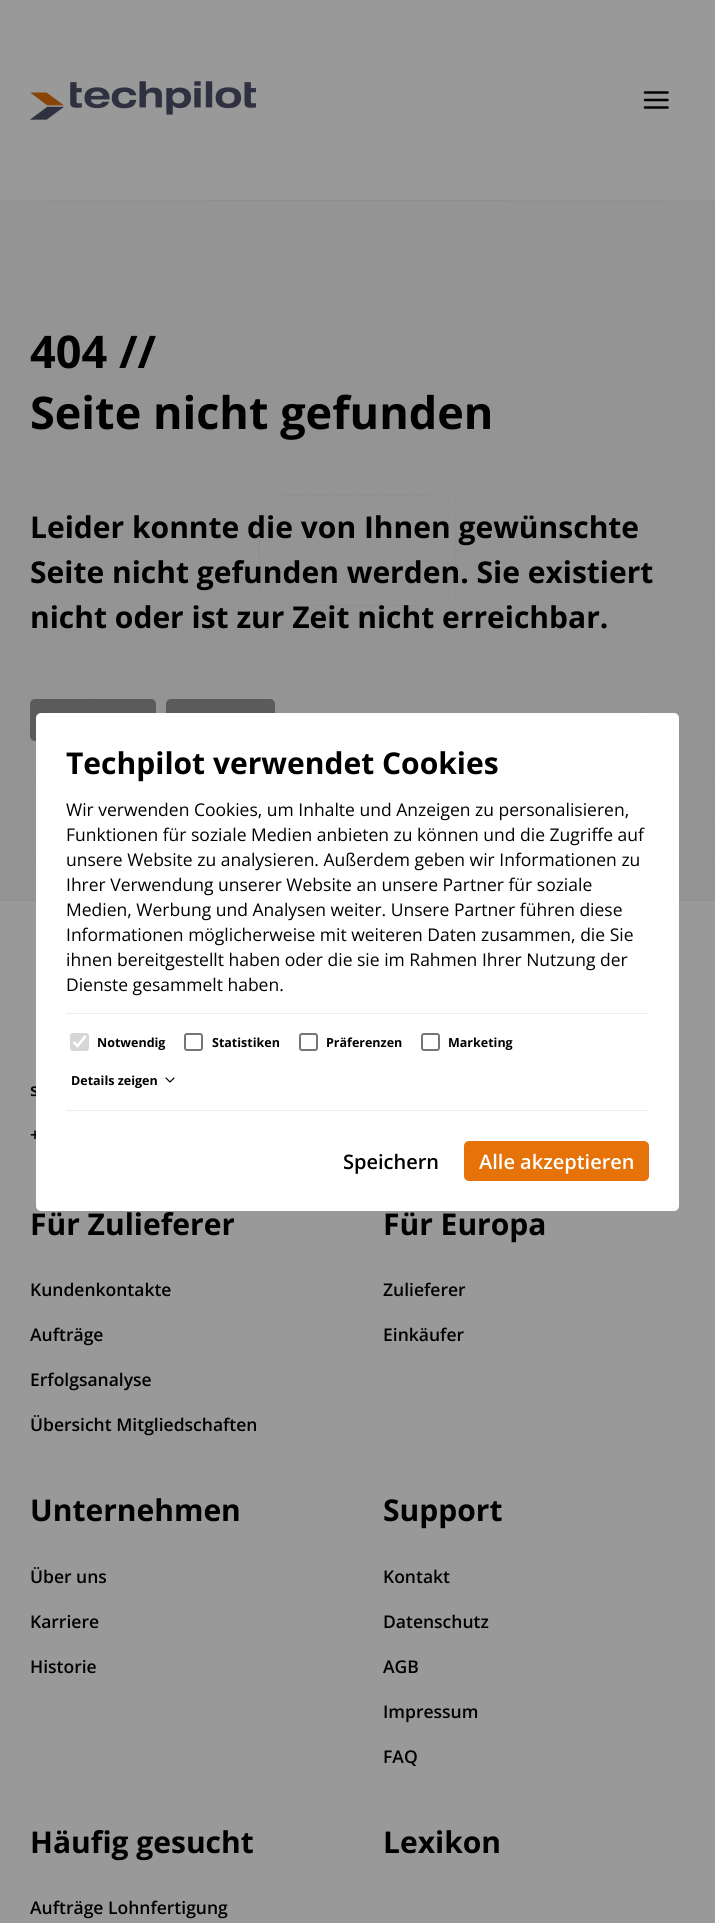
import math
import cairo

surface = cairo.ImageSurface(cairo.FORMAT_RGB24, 715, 1923)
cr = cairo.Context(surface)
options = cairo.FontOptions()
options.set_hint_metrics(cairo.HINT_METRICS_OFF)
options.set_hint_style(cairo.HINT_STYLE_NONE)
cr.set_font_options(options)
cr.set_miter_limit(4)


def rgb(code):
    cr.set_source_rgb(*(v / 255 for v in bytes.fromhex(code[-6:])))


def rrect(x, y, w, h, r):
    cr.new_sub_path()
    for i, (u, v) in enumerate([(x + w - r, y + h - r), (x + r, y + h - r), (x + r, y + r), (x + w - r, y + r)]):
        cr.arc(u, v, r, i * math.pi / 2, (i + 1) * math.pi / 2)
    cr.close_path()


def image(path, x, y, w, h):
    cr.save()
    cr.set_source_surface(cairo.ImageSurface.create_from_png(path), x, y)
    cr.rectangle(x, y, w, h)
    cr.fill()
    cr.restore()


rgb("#999999")
cr.paint()
image("img/1.png", 30, 81, 226, 39)
cr.new_path()
cr.move_to(645, 100)
cr.line_to(667.5, 100)
cr.move_to(645, 92.5)
cr.line_to(667.5, 92.5)
cr.move_to(645, 107.5)
cr.line_to(667.5, 107.5)
rgb("#000000")
cr.set_line_width(2.5)
cr.set_line_cap(cairo.LINE_CAP_ROUND)
cr.set_line_join(cairo.LINE_JOIN_ROUND)
cr.stroke()
rgb("#949494")
cr.rectangle(0, 200, 715, 701)
cr.fill()
image("img/2.png", 0, 200, 715, 701)
rgb("#5b5b5b")
rrect(30, 699, 126, 42, 5)
cr.fill()
rrect(166, 699, 109, 42, 5)
cr.fill()
cr.select_font_face("Open Sans", cairo.FONT_SLANT_NORMAL, cairo.FONT_WEIGHT_BOLD)
cr.set_font_size(45)
rgb("#000000")
cr.move_to(30, 368)
cr.show_text("404 //")
cr.move_to(30, 429)
cr.show_text("Seite nicht gefunden")
cr.set_font_size(30)
for x, y, s in [
    (30, 538, "Leider konnte die von Ihnen gewünschte"),
    (30, 583, "Seite nicht gefunden werden. Sie existiert"),
    (30, 628, "nicht oder ist zur Zeit nicht erreichbar."),
]:
    cr.move_to(x, y)
    cr.show_text(s)
cr.select_font_face("Open Sans SemiBold")
cr.set_font_size(17.5)
cr.move_to(30, 1096)
cr.show_text("s")
cr.move_to(30, 1141)
cr.show_text("+")
rgb("#ffffff")
rrect(36, 713, 643, 498, 5)
cr.fill()
rrect(422, 1034, 17, 16, 2)
rgb("#767676")
cr.set_line_width(2)
cr.set_line_cap(cairo.LINE_CAP_BUTT)
cr.set_line_join(cairo.LINE_JOIN_MITER)
cr.stroke()
rrect(300, 1034, 17, 16, 2)
cr.stroke()
rrect(185, 1034, 17, 16, 2)
cr.stroke()
rgb("#d6d6d6")
rrect(70, 1033, 19, 18, 3)
cr.fill()
cr.new_path()
cr.move_to(73.5, 1042)
cr.line_to(77.5, 1046)
cr.line_to(85.5, 1036)
rgb("#ffffff")
cr.set_line_width(2.6)
cr.stroke()
cr.new_path()
cr.move_to(166, 1078)
cr.line_to(170, 1082)
cr.line_to(174, 1078)
rgb("#000000")
cr.set_line_width(1.2)
cr.set_line_cap(cairo.LINE_CAP_ROUND)
cr.set_line_join(cairo.LINE_JOIN_ROUND)
cr.stroke()
rgb("#e5730a")
rrect(464, 1141, 185, 40, 5)
cr.fill()
cr.set_font_size(20)
rgb("#ffffff")
cr.move_to(479, 1169)
cr.show_text("Alle akzeptieren")
rgb("#000000")
cr.move_to(343, 1169)
cr.show_text("Speichern")
cr.select_font_face("Open Sans", cairo.FONT_SLANT_NORMAL, cairo.FONT_WEIGHT_BOLD)
cr.set_font_size(12.5)
for x, y, s in [
    (71, 1085, "Details zeigen"),
    (448, 1047, "Marketing"),
    (326, 1047, "Präferenzen"),
    (212, 1047, "Statistiken"),
    (97, 1047, "Notwendig"),
]:
    cr.move_to(x, y)
    cr.show_text(s)
rgb("#ececec")
cr.rectangle(66, 1110, 583, 1)
cr.fill()
cr.rectangle(66, 1013, 583, 1)
cr.fill()
cr.select_font_face("Open Sans")
cr.set_font_size(17.5)
rgb("#000000")
for x, y, s in [
    (66, 991, "Dienste gesammelt haben."),
    (66, 966, "ihnen bereitgestellt haben oder die sie im Rahmen Ihrer Nutzung der"),
    (66, 941, "Informationen möglicherweise mit weiteren Daten zusammen, die Sie"),
    (66, 916, "Medien, Werbung und Analysen weiter. Unsere Partner führen diese"),
    (66, 891, "Ihrer Verwendung unserer Website an unsere Partner für soziale"),
    (66, 866, "unsere Website zu analysieren. Außerdem geben wir Informationen zu"),
    (66, 841, "Funktionen für soziale Medien anbieten zu können und die Zugriffe auf"),
    (66, 816, "Wir verwenden Cookies, um Inhalte und Anzeigen zu personalisieren,"),
]:
    cr.move_to(x, y)
    cr.show_text(s)
cr.select_font_face("Open Sans", cairo.FONT_SLANT_NORMAL, cairo.FONT_WEIGHT_BOLD)
cr.set_font_size(30)
cr.move_to(66, 774)
cr.show_text("Techpilot verwendet Cookies")
cr.move_to(30, 1235)
cr.show_text("Für Zulieferer")
cr.select_font_face("Open Sans SemiBold")
cr.set_font_size(17.5)
for x, y, s in [
    (30, 1296, "Kundenkontakte"),
    (30, 1341, "Aufträge"),
    (30, 1386, "Erfolgsanalyse"),
    (30, 1431, "Übersicht Mitgliedschaften"),
]:
    cr.move_to(x, y)
    cr.show_text(s)
cr.select_font_face("Open Sans", cairo.FONT_SLANT_NORMAL, cairo.FONT_WEIGHT_BOLD)
cr.set_font_size(30)
cr.move_to(383, 1235)
cr.show_text("Für Europa")
cr.select_font_face("Open Sans SemiBold")
cr.set_font_size(17.5)
cr.move_to(383, 1296)
cr.show_text("Zulieferer")
cr.move_to(383, 1341)
cr.show_text("Einkäufer")
cr.select_font_face("Open Sans", cairo.FONT_SLANT_NORMAL, cairo.FONT_WEIGHT_BOLD)
cr.set_font_size(30)
cr.move_to(30, 1521)
cr.show_text("Unternehmen")
cr.select_font_face("Open Sans SemiBold")
cr.set_font_size(17.5)
for x, y, s in [
    (30, 1583, "Über uns"),
    (30, 1628, "Karriere"),
    (30, 1673, "Historie"),
]:
    cr.move_to(x, y)
    cr.show_text(s)
cr.select_font_face("Open Sans", cairo.FONT_SLANT_NORMAL, cairo.FONT_WEIGHT_BOLD)
cr.set_font_size(30)
cr.move_to(383, 1521)
cr.show_text("Support")
cr.select_font_face("Open Sans SemiBold")
cr.set_font_size(17.5)
for x, y, s in [
    (383, 1583, "Kontakt"),
    (383, 1628, "Datenschutz"),
    (383, 1673, "AGB"),
    (383, 1718, "Impressum"),
    (383, 1763, "FAQ"),
]:
    cr.move_to(x, y)
    cr.show_text(s)
cr.select_font_face("Open Sans", cairo.FONT_SLANT_NORMAL, cairo.FONT_WEIGHT_BOLD)
cr.set_font_size(30)
cr.move_to(30, 1853)
cr.show_text("Häufig gesucht")
cr.select_font_face("Open Sans SemiBold")
cr.set_font_size(17.5)
cr.move_to(30, 1914)
cr.show_text("Aufträge Lohnfertigung")
cr.select_font_face("Open Sans", cairo.FONT_SLANT_NORMAL, cairo.FONT_WEIGHT_BOLD)
cr.set_font_size(30)
cr.move_to(383, 1853)
cr.show_text("Lexikon")
surface.write_to_png("page.png")
